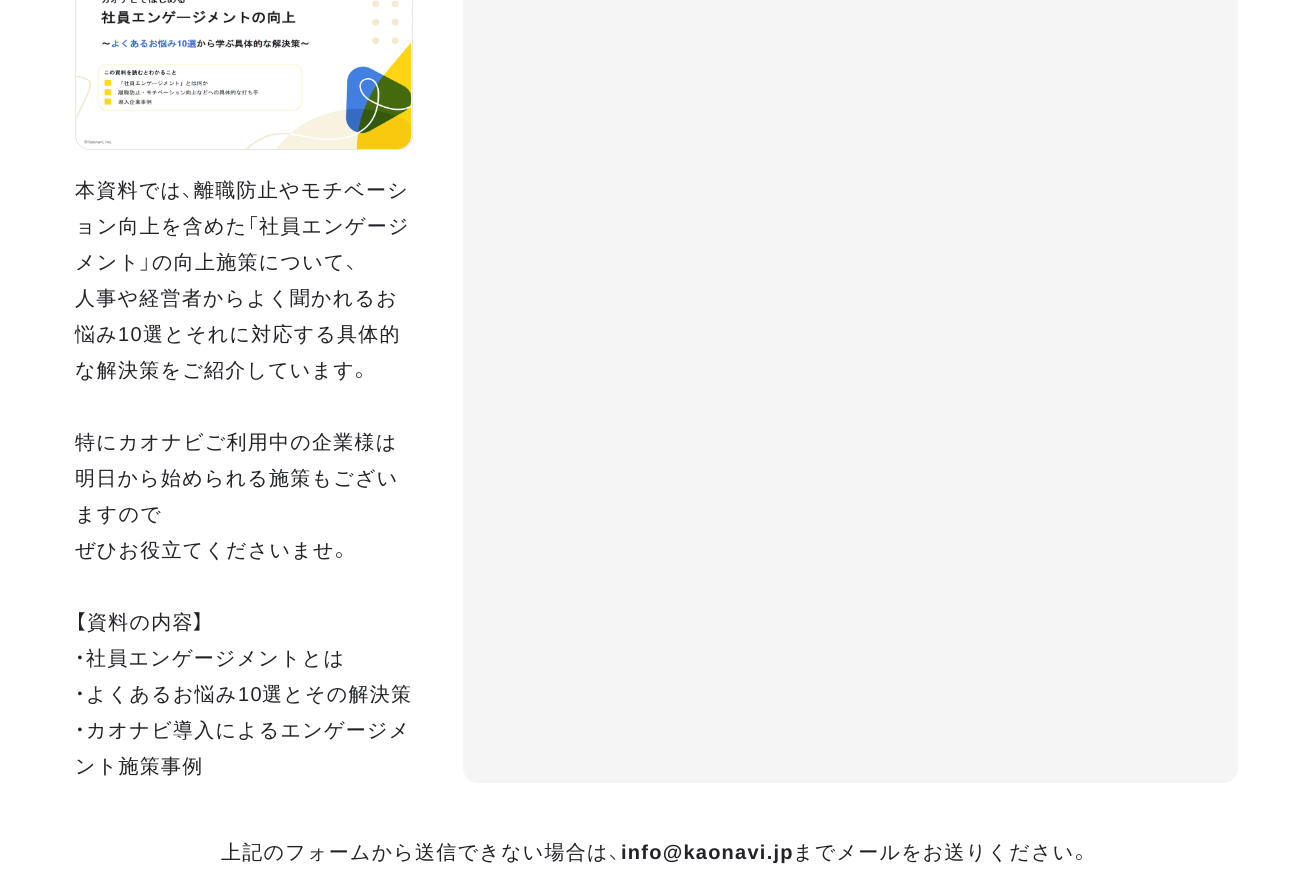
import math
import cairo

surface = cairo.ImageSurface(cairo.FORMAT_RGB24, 1312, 890)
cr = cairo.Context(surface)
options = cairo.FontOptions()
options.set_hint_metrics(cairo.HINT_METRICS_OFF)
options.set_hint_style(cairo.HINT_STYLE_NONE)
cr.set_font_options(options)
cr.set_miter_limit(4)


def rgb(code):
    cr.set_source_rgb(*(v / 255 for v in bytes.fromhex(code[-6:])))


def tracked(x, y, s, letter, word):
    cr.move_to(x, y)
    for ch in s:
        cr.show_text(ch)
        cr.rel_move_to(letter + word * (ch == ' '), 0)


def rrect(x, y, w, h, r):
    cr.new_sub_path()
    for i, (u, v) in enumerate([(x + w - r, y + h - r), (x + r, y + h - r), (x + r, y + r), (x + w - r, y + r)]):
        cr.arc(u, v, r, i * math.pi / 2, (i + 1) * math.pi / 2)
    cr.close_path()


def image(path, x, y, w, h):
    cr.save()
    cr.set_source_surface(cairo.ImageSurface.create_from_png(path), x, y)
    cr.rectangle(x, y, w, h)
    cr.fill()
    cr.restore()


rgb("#ffffff")
cr.paint()
rrect(75.5, -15.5, 337, 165, 14.5)
rgb("#e5e5e5")
cr.set_line_width(1)
cr.stroke()
image("img/1.png", 76, 0, 336, 149)
rgb("#f5f5f5")
rrect(463, -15, 775, 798, 15)
cr.fill()
cr.select_font_face("WenQuanYi Zen Hei Medium")
cr.set_font_size(20)
rgb("#202226")
tracked(75, 197, "本資料では", 1.25, 0)
cr.select_font_face("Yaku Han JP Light")
tracked(182, 197, "、", 1.25, 0)
cr.select_font_face("WenQuanYi Zen Hei Medium")
tracked(194, 197, "離職防止やモチベーシ", 1.25, 0)
tracked(75, 233, "ョン向上を含めた", 1.25, 0)
cr.select_font_face("Yaku Han JP Light")
tracked(247, 233, "「", 1.25, 0)
cr.select_font_face("WenQuanYi Zen Hei Medium")
tracked(259, 233, "社員エンゲージ", 1.25, 0)
tracked(75, 269, "メント", 1.25, 0)
cr.select_font_face("Yaku Han JP Light")
tracked(140, 269, "」", 1.25, 0)
cr.select_font_face("WenQuanYi Zen Hei Medium")
tracked(152, 269, "の向上施策について", 1.25, 0)
cr.select_font_face("Yaku Han JP Light")
tracked(346, 269, "、", 1.25, 0)
cr.select_font_face("WenQuanYi Zen Hei Medium")
tracked(75, 305, "人事や経営者からよく聞かれるお", 1.25, 0)
tracked(75, 341, "悩み", 1.25, 0)
cr.select_font_face("Liberation Sans")
tracked(118, 341, "10", 1.25, 0)
cr.select_font_face("WenQuanYi Zen Hei Medium")
tracked(143, 341, "選とそれに対応する具体的", 1.25, 0)
tracked(75, 377, "な解決策をご紹介しています", 1.25, 0)
cr.select_font_face("Yaku Han JP Light")
tracked(355, 377, "。", 1.25, 0)
cr.select_font_face("WenQuanYi Zen Hei Medium")
for x, y, s in [
    (75, 449, "特にカオナビご利用中の企業様は"),
    (75, 485, "明日から始められる施策もござい"),
    (75, 521, "ますので"),
    (75, 557, "ぜひお役立てくださいませ"),
]:
    tracked(x, y, s, 1.25, 0)
cr.select_font_face("Yaku Han JP Light")
tracked(335, 557, "。", 1.25, 0)
tracked(75, 629, "【", 1.25, 0)
cr.select_font_face("WenQuanYi Zen Hei Medium")
tracked(87, 629, "資料の内容", 1.25, 0)
cr.select_font_face("Yaku Han JP Light")
tracked(193, 629, "】", 1.25, 0)
tracked(75, 665, "・", 1.25, 0)
cr.select_font_face("WenQuanYi Zen Hei Medium")
tracked(86, 665, "社員エンゲージメントとは", 1.25, 0)
cr.select_font_face("Yaku Han JP Light")
tracked(75, 701, "・", 1.25, 0)
cr.select_font_face("WenQuanYi Zen Hei Medium")
tracked(86, 701, "よくあるお悩み", 1.25, 0)
cr.select_font_face("Liberation Sans")
tracked(238, 701, "10", 1.25, 0)
cr.select_font_face("WenQuanYi Zen Hei Medium")
tracked(262, 701, "選とその解決策", 1.25, 0)
cr.select_font_face("Yaku Han JP Light")
tracked(75, 737, "・", 1.25, 0)
cr.select_font_face("WenQuanYi Zen Hei Medium")
for x, y, s in [
    (86, 737, "カオナビ導入によるエンゲージメ"),
    (75, 773, "ント施策事例"),
    (221, 859, "上記のフォームから送信できない場合は"),
]:
    tracked(x, y, s, 1.25, 0)
cr.select_font_face("Yaku Han JP Light")
tracked(609, 859, "、", 1.25, 0)
cr.select_font_face("Liberation Sans", cairo.FONT_SLANT_NORMAL, cairo.FONT_WEIGHT_BOLD)
tracked(621, 859, "info@kaonavi.jp", 1.25, 0)
cr.select_font_face("WenQuanYi Zen Hei Medium")
tracked(793, 859, "までメールをお送りください", 1.25, 0)
cr.select_font_face("Yaku Han JP Light")
tracked(1075, 859, "。", 1.25, 0)
surface.write_to_png("page.png")
